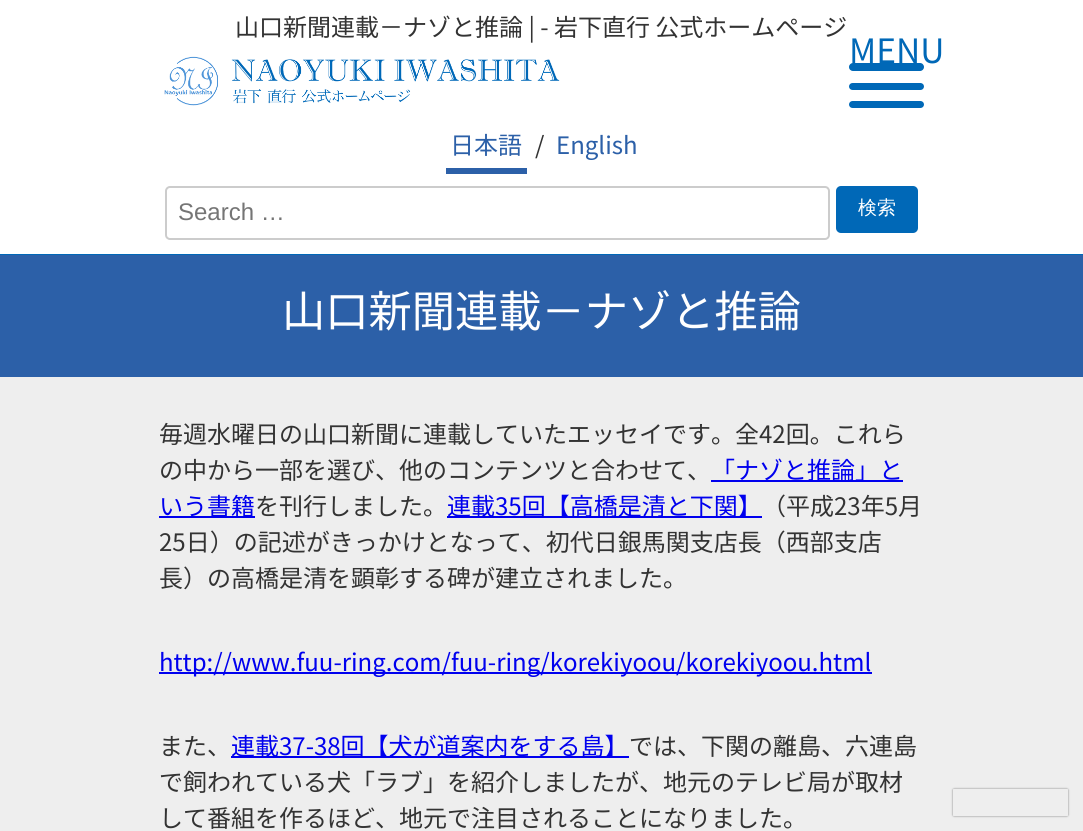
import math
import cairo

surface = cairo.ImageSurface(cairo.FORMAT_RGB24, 1083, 831)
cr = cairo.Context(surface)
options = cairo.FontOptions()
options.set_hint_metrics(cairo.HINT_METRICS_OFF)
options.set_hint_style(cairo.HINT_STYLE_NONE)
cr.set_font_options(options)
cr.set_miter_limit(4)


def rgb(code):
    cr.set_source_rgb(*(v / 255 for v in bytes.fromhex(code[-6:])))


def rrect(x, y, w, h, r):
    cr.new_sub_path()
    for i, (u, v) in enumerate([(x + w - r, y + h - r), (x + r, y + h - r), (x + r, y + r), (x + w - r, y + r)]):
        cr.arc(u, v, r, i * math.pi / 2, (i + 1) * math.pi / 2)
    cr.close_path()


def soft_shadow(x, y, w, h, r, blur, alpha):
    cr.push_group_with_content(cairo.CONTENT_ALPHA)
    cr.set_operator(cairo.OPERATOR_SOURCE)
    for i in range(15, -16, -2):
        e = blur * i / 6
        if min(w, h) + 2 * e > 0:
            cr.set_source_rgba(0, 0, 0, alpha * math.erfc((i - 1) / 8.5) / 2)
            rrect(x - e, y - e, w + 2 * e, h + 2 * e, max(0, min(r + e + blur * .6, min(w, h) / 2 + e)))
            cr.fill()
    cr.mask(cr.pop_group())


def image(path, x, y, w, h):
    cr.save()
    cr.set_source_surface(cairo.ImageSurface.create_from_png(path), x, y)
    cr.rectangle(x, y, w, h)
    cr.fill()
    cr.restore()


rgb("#ffffff")
cr.paint()
rgb("#0068b7")
cr.rectangle(0, 254, 1083, 1)
cr.fill()
rrect(849, 63, 75, 8, 4)
cr.fill()
rrect(849, 83, 75, 7, 3.5)
cr.fill()
rrect(849, 101, 75, 7, 3.5)
cr.fill()
image("img/1.png", 164, 56, 396, 50)
rgb("#2c60a8")
cr.rectangle(446, 168, 81, 6)
cr.fill()
rrect(166, 187, 663, 52, 4)
rgb("#cccccc")
cr.stroke()
rgb("#0068b7")
rrect(836, 186, 82, 47, 5)
cr.fill()
for x, y, w, h, color in [
    (0, 377, 1083, 454, "#eeeeee"),
    (0, 255, 1083, 122, "#2c60a8"),
    (711, 480, 192, 2, "#0000ee"),
    (159, 516, 96, 2, "#0000ee"),
    (447, 516, 315, 2, "#0000ee"),
    (159, 672, 713, 2, "#0000ee"),
    (231, 756, 398, 2, "#0000ee"),
]:
    rgb(color)
    cr.rectangle(x, y, w, h)
    cr.fill()
cr.save()
cr.set_fill_rule(cairo.FILL_RULE_EVEN_ODD)
cr.new_path()
cr.move_to(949, 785)
cr.line_to(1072, 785)
cr.line_to(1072, 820)
cr.line_to(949, 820)
cr.close_path()
cr.move_to(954, 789)
cr.line_to(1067, 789)
cr.curve_to(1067.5, 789, 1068, 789.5, 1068, 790)
cr.line_to(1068, 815)
cr.curve_to(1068, 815.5, 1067.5, 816, 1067, 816)
cr.line_to(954, 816)
cr.curve_to(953.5, 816, 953, 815.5, 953, 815)
cr.line_to(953, 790)
cr.curve_to(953, 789.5, 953.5, 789, 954, 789)
cr.close_path()
cr.clip()
rgb("#808080")
soft_shadow(953, 789, 115, 27, 1, 1, 1)
cr.restore()
cr.select_font_face("Noto Sans JP")
cr.set_font_size(24)
rgb("#333333")
cr.move_to(235, 36)
cr.show_text("山口新聞連載－ナゾと推論 | - 岩下直行 公式ホームページ")
cr.set_font_size(33.5)
rgb("#0068b7")
cr.move_to(849, 63)
cr.show_text("MENU")
cr.set_font_size(24)
rgb("#2c60a8")
cr.move_to(450, 154)
cr.show_text("日本語")
rgb("#333333")
cr.move_to(535, 154)
cr.show_text("/")
rgb("#2c60a8")
cr.move_to(556, 154)
cr.show_text("English")
cr.select_font_face("Liberation Sans")
rgb("#757575")
cr.move_to(178, 220)
cr.show_text("Search …")
cr.select_font_face("WenQuanYi Zen Hei Medium")
cr.set_font_size(19)
rgb("#ffffff")
cr.move_to(858, 214)
cr.show_text("検索")
cr.select_font_face("Noto Sans JP")
cr.set_font_size(43.25)
cr.move_to(282, 327)
cr.show_text("山口新聞連載－ナゾと推論")
cr.set_font_size(24)
rgb("#333333")
cr.move_to(159, 443)
cr.show_text("毎週水曜日の山口新聞に連載していたエッセイです。全42回。これら")
cr.move_to(159, 479)
cr.show_text("の中から一部を選び、他のコンテンツと合わせて、")
rgb("#0000ee")
cr.move_to(711, 479)
cr.show_text("「ナゾと推論」と")
cr.move_to(159, 515)
cr.show_text("いう書籍")
rgb("#333333")
cr.move_to(255, 515)
cr.show_text("を刊行しました。")
rgb("#0000ee")
cr.move_to(447, 515)
cr.show_text("連載35回【高橋是清と下関】")
rgb("#333333")
for x, y, s in [
    (762, 515, "（平成23年5月"),
    (159, 551, "25日）の記述がきっかけとなって、初代日銀馬関支店長（西部支店"),
    (159, 587, "長）の高橋是清を顕彰する碑が建立されました。"),
]:
    cr.move_to(x, y)
    cr.show_text(s)
rgb("#0000ee")
cr.move_to(159, 671)
cr.show_text("http://www.fuu-ring.com/fuu-ring/korekiyoou/korekiyoou.html")
rgb("#333333")
cr.move_to(159, 755)
cr.show_text("また、")
rgb("#0000ee")
cr.move_to(231, 755)
cr.show_text("連載37-38回【犬が道案内をする島】")
rgb("#333333")
for x, y, s in [
    (629, 755, "では、下関の離島、六連島"),
    (159, 791, "で飼われている犬「ラブ」を紹介しましたが、地元のテレビ局が取材"),
    (159, 827, "して番組を作るほど、地元で注目されることになりました。"),
]:
    cr.move_to(x, y)
    cr.show_text(s)
surface.write_to_png("page.png")
